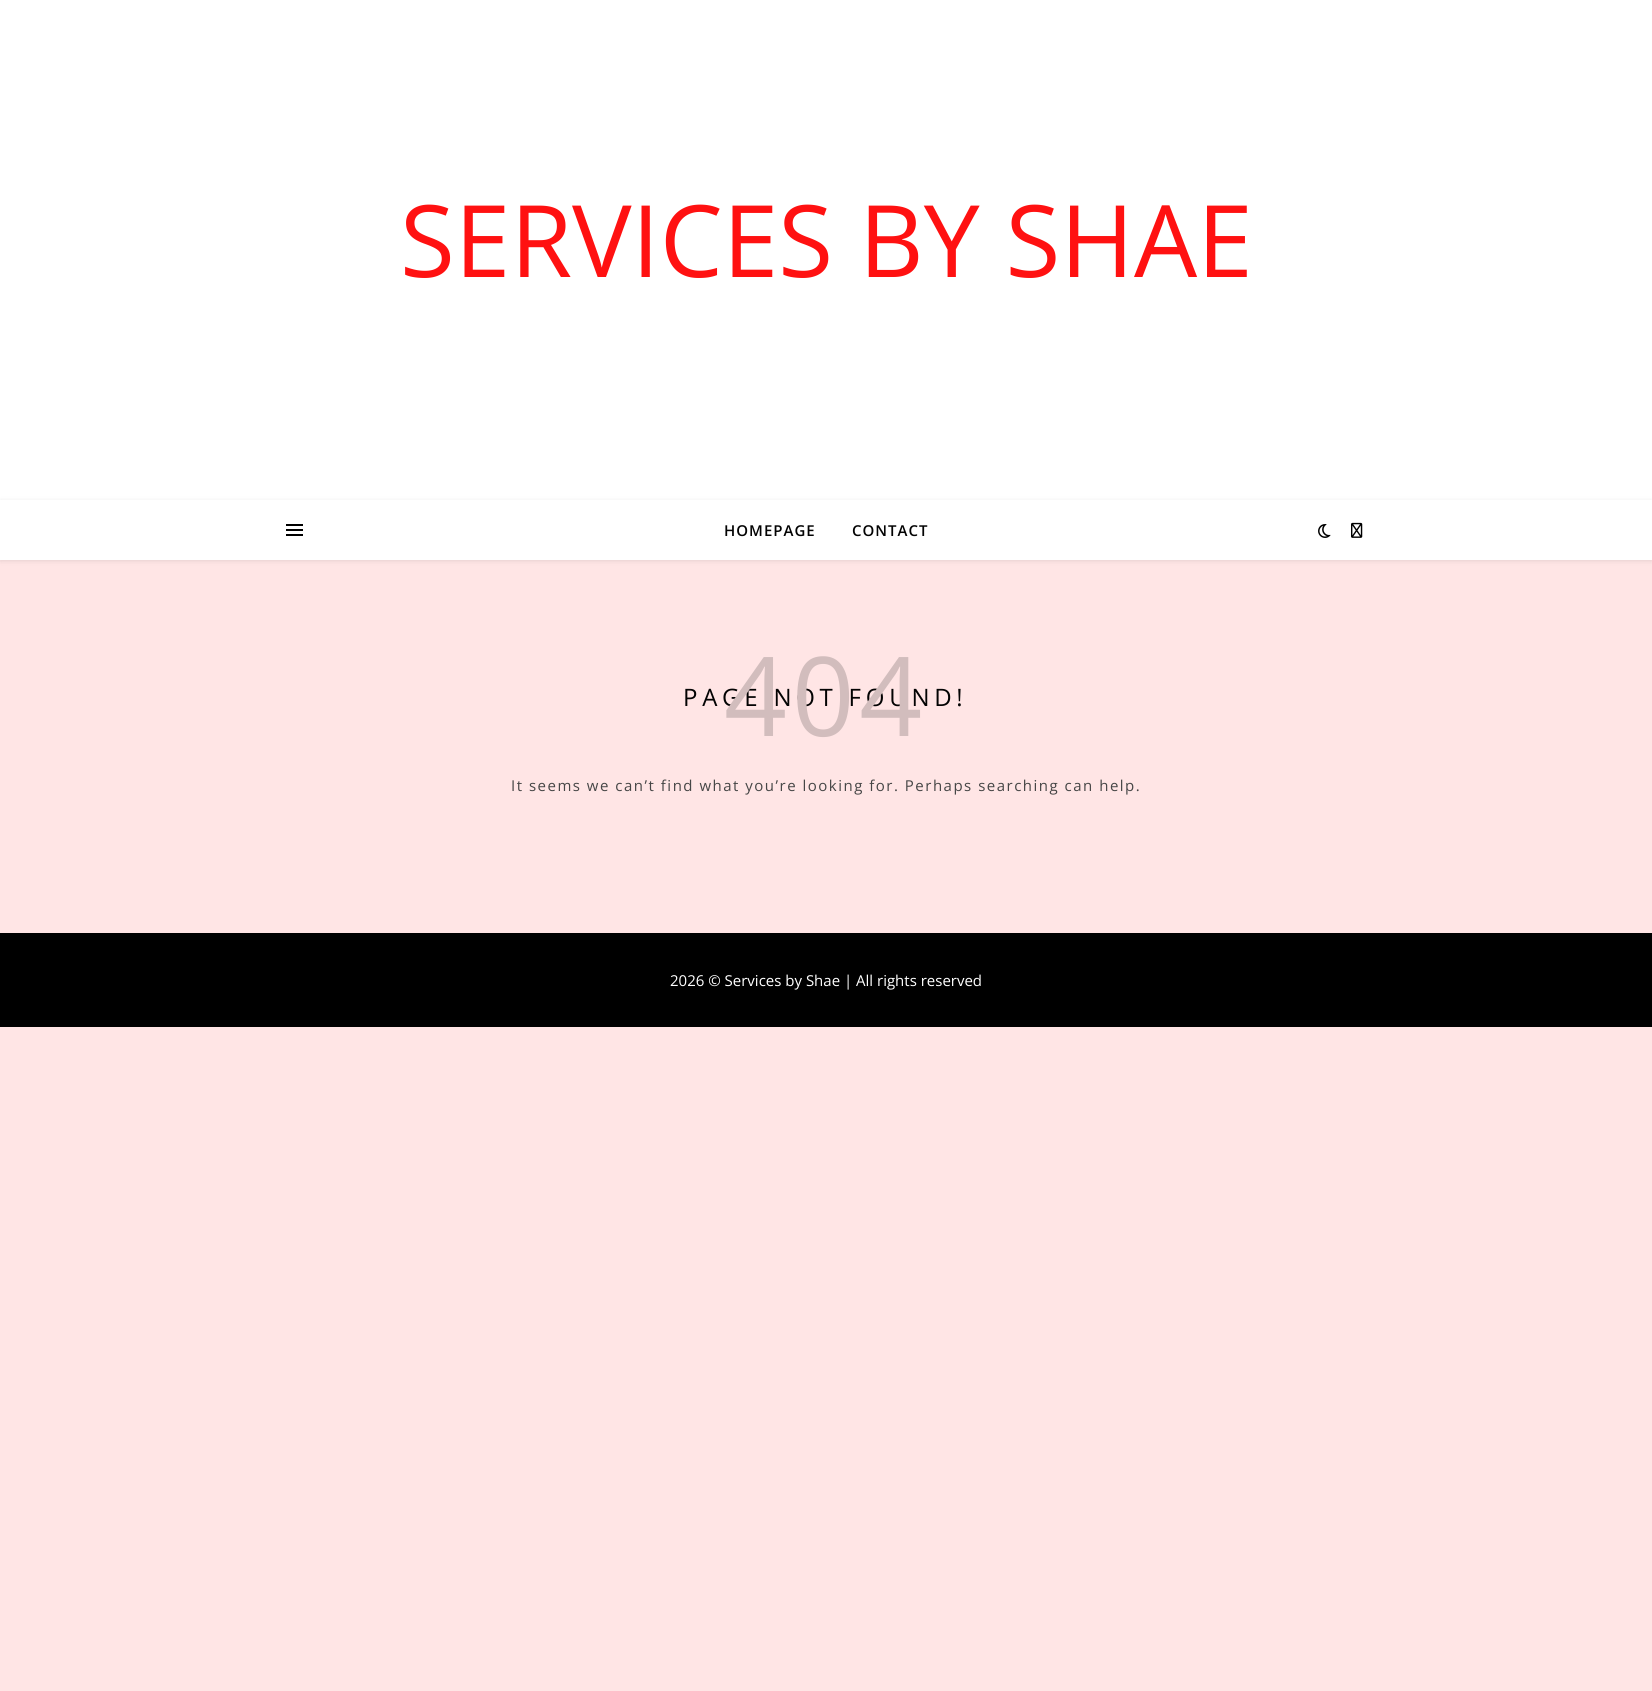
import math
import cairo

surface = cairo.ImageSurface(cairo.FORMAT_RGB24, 1652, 1691)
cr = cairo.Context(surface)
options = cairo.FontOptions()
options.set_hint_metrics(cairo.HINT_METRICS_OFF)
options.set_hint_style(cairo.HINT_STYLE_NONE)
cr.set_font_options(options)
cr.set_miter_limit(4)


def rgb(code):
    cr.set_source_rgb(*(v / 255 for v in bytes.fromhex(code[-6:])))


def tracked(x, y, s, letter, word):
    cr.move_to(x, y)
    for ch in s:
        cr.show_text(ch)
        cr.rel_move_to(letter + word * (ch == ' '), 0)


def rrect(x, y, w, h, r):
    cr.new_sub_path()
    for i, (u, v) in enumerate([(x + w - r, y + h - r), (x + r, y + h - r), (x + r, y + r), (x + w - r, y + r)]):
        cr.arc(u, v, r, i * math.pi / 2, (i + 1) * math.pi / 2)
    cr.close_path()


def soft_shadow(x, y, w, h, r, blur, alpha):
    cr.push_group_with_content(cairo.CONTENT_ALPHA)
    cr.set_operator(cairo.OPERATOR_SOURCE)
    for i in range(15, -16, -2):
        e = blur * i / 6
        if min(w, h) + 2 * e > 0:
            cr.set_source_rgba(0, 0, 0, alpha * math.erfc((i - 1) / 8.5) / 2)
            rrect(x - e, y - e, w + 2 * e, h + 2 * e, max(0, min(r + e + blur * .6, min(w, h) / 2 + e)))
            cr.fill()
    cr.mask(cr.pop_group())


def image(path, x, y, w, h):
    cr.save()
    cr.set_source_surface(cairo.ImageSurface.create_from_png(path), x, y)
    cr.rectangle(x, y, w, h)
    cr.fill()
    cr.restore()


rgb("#ffe5e5")
cr.paint()
rgb("#ffffff")
cr.rectangle(0, 0, 1652, 500)
cr.fill()
rgb("#000000")
soft_shadow(0, 501, 1652, 60, 0, 2.5, 0.1)
for x, y, w, h, color in [
    (0, 500, 1652, 60, "#ffffff"),
    (286, 524, 17, 2, "#000000"),
    (286, 529, 17, 2, "#000000"),
    (286, 534, 17, 2, "#000000"),
]:
    rgb(color)
    cr.rectangle(x, y, w, h)
    cr.fill()
image("img/1.png", 1318, 524, 13, 14)
image("img/2.png", 1351, 522, 12, 16)
cr.rectangle(0, 933, 1652, 94)
cr.fill()
cr.select_font_face("Open Sans")
cr.set_font_size(100)
rgb("#ff1111")
cr.move_to(400, 277)
cr.show_text("SERVICES BY SHAE")
cr.select_font_face("Open Sans SemiBold")
cr.set_font_size(15)
rgb("#030303")
tracked(724, 536, "HOMEPAGE", 1, 0)
tracked(852, 536, "CONTACT", 1, 0)
cr.select_font_face("Open Sans")
cr.set_font_size(24)
tracked(683, 706, "PAGE NOT FOUND!", 4.75, 0)
cr.set_font_size(110)
rgb("#d2bdbd")
tracked(724, 736, "404", 4.75, 0)
cr.set_font_size(15)
rgb("#464646")
tracked(511, 791, "It seems we can’t find what you’re looking for. Perhaps searching can help.", 1.5, 0)
rgb("#ffffff")
cr.move_to(670, 986)
cr.show_text("2026 © Services by Shae | All rights reserved")
surface.write_to_png("page.png")
